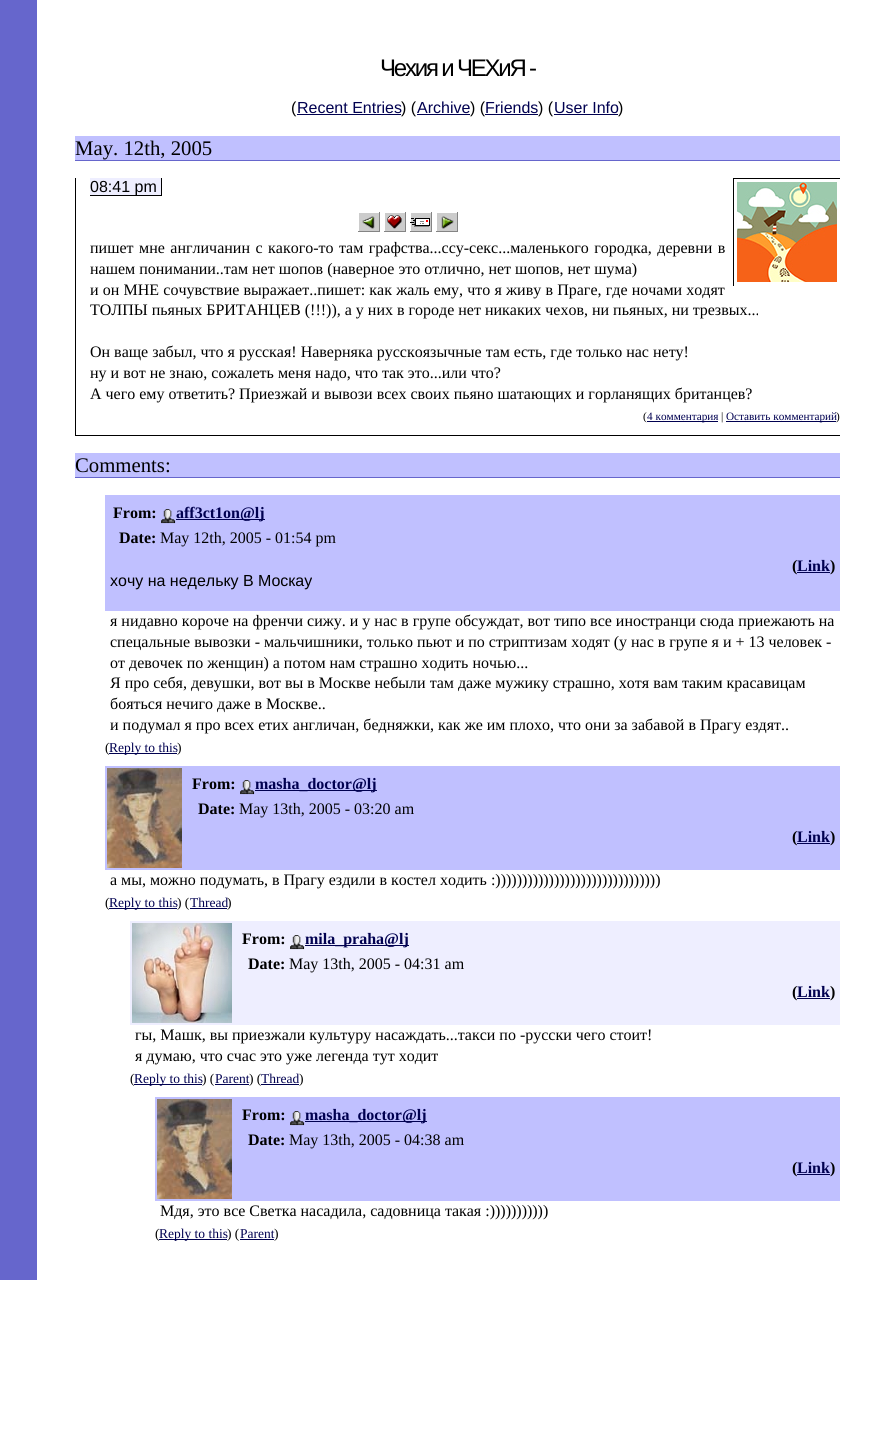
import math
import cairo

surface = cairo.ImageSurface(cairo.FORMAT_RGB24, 878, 1429)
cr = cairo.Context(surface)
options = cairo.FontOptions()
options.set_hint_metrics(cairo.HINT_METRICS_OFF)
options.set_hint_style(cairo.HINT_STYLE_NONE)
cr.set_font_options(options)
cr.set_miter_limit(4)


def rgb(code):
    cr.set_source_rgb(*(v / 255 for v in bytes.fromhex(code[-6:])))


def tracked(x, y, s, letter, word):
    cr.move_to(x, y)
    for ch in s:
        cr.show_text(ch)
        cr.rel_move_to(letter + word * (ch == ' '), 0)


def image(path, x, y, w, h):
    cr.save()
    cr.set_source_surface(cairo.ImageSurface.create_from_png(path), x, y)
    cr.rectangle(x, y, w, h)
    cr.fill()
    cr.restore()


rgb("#ffffff")
cr.paint()
for x, y, w, h, color in [
    (0, 0, 37, 1280, "#6666cc"),
    (297, 114, 104, 1, "#000050"),
    (417, 114, 53, 1, "#000050"),
    (485, 114, 53, 1, "#000050"),
    (554, 114, 64, 1, "#000050"),
    (75, 136, 765, 24, "#c0c0ff"),
    (75, 160, 765, 1, "#6666cc"),
    (75, 435, 765, 1, "#000000"),
    (75, 178, 1, 258, "#000000"),
    (90, 178, 71, 17, "#eeeeff"),
    (161, 178, 1, 18, "#000000"),
    (90, 195, 72, 1, "#000000"),
    (733, 178, 107, 1, "#000000"),
    (733, 178, 1, 108, "#000000"),
]:
    rgb(color)
    cr.rectangle(x, y, w, h)
    cr.fill()
image("img/1.png", 737, 182, 100, 100)
image("img/2.png", 358, 212, 22, 20)
image("img/3.png", 384, 212, 22, 20)
image("img/4.png", 410, 212, 22, 20)
image("img/5.png", 436, 212, 22, 20)
for x, y, w, h, color in [
    (647, 421, 71, 1, "#000050"),
    (726, 421, 110, 1, "#000050"),
    (75, 453, 765, 24, "#c0c0ff"),
    (75, 477, 765, 1, "#6666cc"),
    (105, 495, 735, 116, "#c0c0ff"),
]:
    rgb(color)
    cr.rectangle(x, y, w, h)
    cr.fill()
image("img/6.png", 161, 509, 15, 15)
for x, y, w, h, color in [
    (176, 519, 89, 1, "#000050"),
    (797, 572, 33, 1, "#000050"),
    (109, 753, 68, 1, "#000050"),
    (105, 766, 735, 104, "#c0c0ff"),
]:
    rgb(color)
    cr.rectangle(x, y, w, h)
    cr.fill()
image("img/7.png", 107, 768, 75, 100)
image("img/6.png", 240, 780, 15, 15)
for x, y, w, h, color in [
    (255, 790, 122, 1, "#000050"),
    (797, 843, 33, 1, "#000050"),
    (109, 908, 68, 1, "#000050"),
    (190, 908, 37, 1, "#000050"),
    (130, 921, 710, 104, "#eeeeff"),
]:
    rgb(color)
    cr.rectangle(x, y, w, h)
    cr.fill()
image("img/8.png", 132, 923, 100, 100)
image("img/9.png", 290, 935, 15, 15)
for x, y, w, h, color in [
    (305, 945, 104, 1, "#000050"),
    (797, 998, 33, 1, "#000050"),
    (134, 1084, 68, 1, "#000050"),
    (215, 1084, 34, 1, "#000050"),
    (261, 1084, 38, 1, "#000050"),
    (155, 1097, 685, 104, "#c0c0ff"),
]:
    rgb(color)
    cr.rectangle(x, y, w, h)
    cr.fill()
image("img/7.png", 157, 1099, 75, 100)
image("img/6.png", 290, 1111, 15, 15)
for x, y, w, h, color in [
    (305, 1121, 122, 1, "#000050"),
    (797, 1174, 33, 1, "#000050"),
    (159, 1239, 68, 1, "#000050"),
    (240, 1239, 34, 1, "#000050"),
]:
    rgb(color)
    cr.rectangle(x, y, w, h)
    cr.fill()
cr.select_font_face("Liberation Sans")
cr.set_font_size(24)
rgb("#000000")
tracked(380, 76, "Чехия и ЧЕХиЯ -", -2.2, 0)
cr.set_font_size(16)
cr.move_to(291, 113)
cr.show_text("(")
rgb("#000050")
cr.move_to(297, 113)
cr.show_text("Recent Entries")
rgb("#000000")
cr.move_to(401, 113)
cr.show_text(") (")
rgb("#000050")
cr.move_to(417, 113)
cr.show_text("Archive")
rgb("#000000")
cr.move_to(470, 113)
cr.show_text(") (")
rgb("#000050")
cr.move_to(485, 113)
cr.show_text("Friends")
rgb("#000000")
cr.move_to(538, 113)
cr.show_text(") (")
rgb("#000050")
cr.move_to(554, 113)
cr.show_text("User Info")
rgb("#000000")
cr.move_to(618, 113)
cr.show_text(")")
cr.select_font_face("Liberation Serif")
cr.set_font_size(20.75)
cr.move_to(75, 155)
cr.show_text("May. 12th, 2005")
cr.select_font_face("Liberation Sans")
cr.set_font_size(16)
cr.move_to(90, 192)
cr.show_text("08:41 pm")
cr.select_font_face("Liberation Serif")
tracked(90, 253, "пишет мне англичанин с какого-то там графства...ссу-секс...маленького городка, деревни в", 0, 1.5)
cr.move_to(90, 274)
cr.show_text("нашем понимании..там нет шопов (наверное это отлично, нет шопов, нет шума)")
tracked(90, 295, "и он МНЕ сочувствие выражает..пишет: как жаль ему, что я живу в Праге, где ночами ходят", 0, 0.2)
for x, y, s in [
    (90, 315, "ТОЛПЫ пьяных БРИТАНЦЕВ (!!!)), а у них в городе нет никаких чехов, ни пьяных, ни трезвых..."),
    (90, 357, "Он ваще забыл, что я русская! Наверняка русскоязычные там есть, где только нас нету!"),
    (90, 378, "ну и вот не знаю, сожалеть меня надо, что так это...или что?"),
    (90, 399, "А чего ему ответить? Приезжай и вывози всех своих пьяно шатающих и горланящих британцев?"),
]:
    cr.move_to(x, y)
    cr.show_text(s)
cr.set_font_size(11.25)
cr.move_to(643, 420)
cr.show_text("(")
rgb("#000050")
cr.move_to(647, 420)
cr.show_text("4 комментария")
rgb("#000000")
cr.move_to(721, 420)
cr.show_text("|")
rgb("#000050")
cr.move_to(726, 420)
cr.show_text("Оставить комментарий")
rgb("#000000")
cr.move_to(836, 420)
cr.show_text(")")
cr.set_font_size(20.75)
cr.move_to(75, 472)
cr.show_text("Comments:")
cr.select_font_face("Liberation Serif", cairo.FONT_SLANT_NORMAL, cairo.FONT_WEIGHT_BOLD)
cr.set_font_size(16)
cr.move_to(113, 518)
cr.show_text("From:")
rgb("#000050")
cr.move_to(176, 518)
cr.show_text("aff3ct1on@lj")
rgb("#000000")
cr.move_to(119, 543)
cr.show_text("Date:")
cr.select_font_face("Liberation Serif")
cr.move_to(160, 543)
cr.show_text("May 12th, 2005 - 01:54 pm")
cr.select_font_face("Liberation Serif", cairo.FONT_SLANT_NORMAL, cairo.FONT_WEIGHT_BOLD)
cr.move_to(792, 571)
cr.show_text("(")
rgb("#000050")
cr.move_to(797, 571)
cr.show_text("Link")
rgb("#000000")
cr.move_to(830, 571)
cr.show_text(")")
cr.select_font_face("Liberation Sans")
cr.move_to(110, 586)
cr.show_text("хочу на недельку В Москау")
cr.select_font_face("Liberation Serif")
for x, y, s in [
    (110, 626, "я нидавно короче на френчи сижу. и у нас в групе обсуждат, вот типо все иностранци сюда приежають на"),
    (110, 647, "спецальные вывозки - мальчишники, только пьют и по стриптизам ходят (у нас в групе я и + 13 человек -"),
    (110, 668, "от девочек по женщин) а потом нам страшно ходить ночью..."),
    (110, 688, "Я про себя, девушки, вот вы в Москве небыли там даже мужику страшно, хотя вам таким красавицам"),
    (110, 709, "бояться нечиго даже в Москве.."),
    (110, 730, "и подумал я про всех етих англичан, бедняжки, как же им плохо, что они за забавой в Прагу ездят.."),
]:
    cr.move_to(x, y)
    cr.show_text(s)
cr.set_font_size(13.5)
cr.move_to(105, 752)
cr.show_text("(")
rgb("#000050")
cr.move_to(109, 752)
cr.show_text("Reply to this")
rgb("#000000")
cr.move_to(177, 752)
cr.show_text(")")
cr.select_font_face("Liberation Serif", cairo.FONT_SLANT_NORMAL, cairo.FONT_WEIGHT_BOLD)
cr.set_font_size(16)
cr.move_to(192, 789)
cr.show_text("From:")
rgb("#000050")
cr.move_to(255, 789)
cr.show_text("masha_doctor@lj")
rgb("#000000")
cr.move_to(198, 814)
cr.show_text("Date:")
cr.select_font_face("Liberation Serif")
cr.move_to(239, 814)
cr.show_text("May 13th, 2005 - 03:20 am")
cr.select_font_face("Liberation Serif", cairo.FONT_SLANT_NORMAL, cairo.FONT_WEIGHT_BOLD)
cr.move_to(792, 842)
cr.show_text("(")
rgb("#000050")
cr.move_to(797, 842)
cr.show_text("Link")
rgb("#000000")
cr.move_to(830, 842)
cr.show_text(")")
cr.select_font_face("Liberation Serif")
cr.move_to(110, 885)
cr.show_text("а мы, можно подумать, в Прагу ездили в костел ходить :)))))))))))))))))))))))))))))))")
cr.set_font_size(13.5)
cr.move_to(105, 907)
cr.show_text("(")
rgb("#000050")
cr.move_to(109, 907)
cr.show_text("Reply to this")
rgb("#000000")
cr.move_to(177, 907)
cr.show_text(") (")
rgb("#000050")
cr.move_to(190, 907)
cr.show_text("Thread")
rgb("#000000")
cr.move_to(227, 907)
cr.show_text(")")
cr.select_font_face("Liberation Serif", cairo.FONT_SLANT_NORMAL, cairo.FONT_WEIGHT_BOLD)
cr.set_font_size(16)
cr.move_to(242, 944)
cr.show_text("From:")
rgb("#000050")
cr.move_to(305, 944)
cr.show_text("mila_praha@lj")
rgb("#000000")
cr.move_to(248, 969)
cr.show_text("Date:")
cr.select_font_face("Liberation Serif")
cr.move_to(289, 969)
cr.show_text("May 13th, 2005 - 04:31 am")
cr.select_font_face("Liberation Serif", cairo.FONT_SLANT_NORMAL, cairo.FONT_WEIGHT_BOLD)
cr.move_to(792, 997)
cr.show_text("(")
rgb("#000050")
cr.move_to(797, 997)
cr.show_text("Link")
rgb("#000000")
cr.move_to(830, 997)
cr.show_text(")")
cr.select_font_face("Liberation Serif")
cr.move_to(135, 1040)
cr.show_text("гы, Машк, вы приезжали культуру насаждать...такси по -русски чего стоит!")
cr.move_to(135, 1061)
cr.show_text("я думаю, что счас это уже легенда тут ходит")
cr.set_font_size(13.5)
cr.move_to(130, 1083)
cr.show_text("(")
rgb("#000050")
cr.move_to(134, 1083)
cr.show_text("Reply to this")
rgb("#000000")
cr.move_to(202, 1083)
cr.show_text(") (")
rgb("#000050")
cr.move_to(215, 1083)
cr.show_text("Parent")
rgb("#000000")
cr.move_to(249, 1083)
cr.show_text(") (")
rgb("#000050")
cr.move_to(261, 1083)
cr.show_text("Thread")
rgb("#000000")
cr.move_to(299, 1083)
cr.show_text(")")
cr.select_font_face("Liberation Serif", cairo.FONT_SLANT_NORMAL, cairo.FONT_WEIGHT_BOLD)
cr.set_font_size(16)
cr.move_to(242, 1120)
cr.show_text("From:")
rgb("#000050")
cr.move_to(305, 1120)
cr.show_text("masha_doctor@lj")
rgb("#000000")
cr.move_to(248, 1145)
cr.show_text("Date:")
cr.select_font_face("Liberation Serif")
cr.move_to(289, 1145)
cr.show_text("May 13th, 2005 - 04:38 am")
cr.select_font_face("Liberation Serif", cairo.FONT_SLANT_NORMAL, cairo.FONT_WEIGHT_BOLD)
cr.move_to(792, 1173)
cr.show_text("(")
rgb("#000050")
cr.move_to(797, 1173)
cr.show_text("Link")
rgb("#000000")
cr.move_to(830, 1173)
cr.show_text(")")
cr.select_font_face("Liberation Serif")
cr.move_to(160, 1216)
cr.show_text("Мдя, это все Светка насадила, садовница такая :)))))))))))")
cr.set_font_size(13.5)
cr.move_to(155, 1238)
cr.show_text("(")
rgb("#000050")
cr.move_to(159, 1238)
cr.show_text("Reply to this")
rgb("#000000")
cr.move_to(227, 1238)
cr.show_text(") (")
rgb("#000050")
cr.move_to(240, 1238)
cr.show_text("Parent")
rgb("#000000")
cr.move_to(274, 1238)
cr.show_text(")")
surface.write_to_png("page.png")
